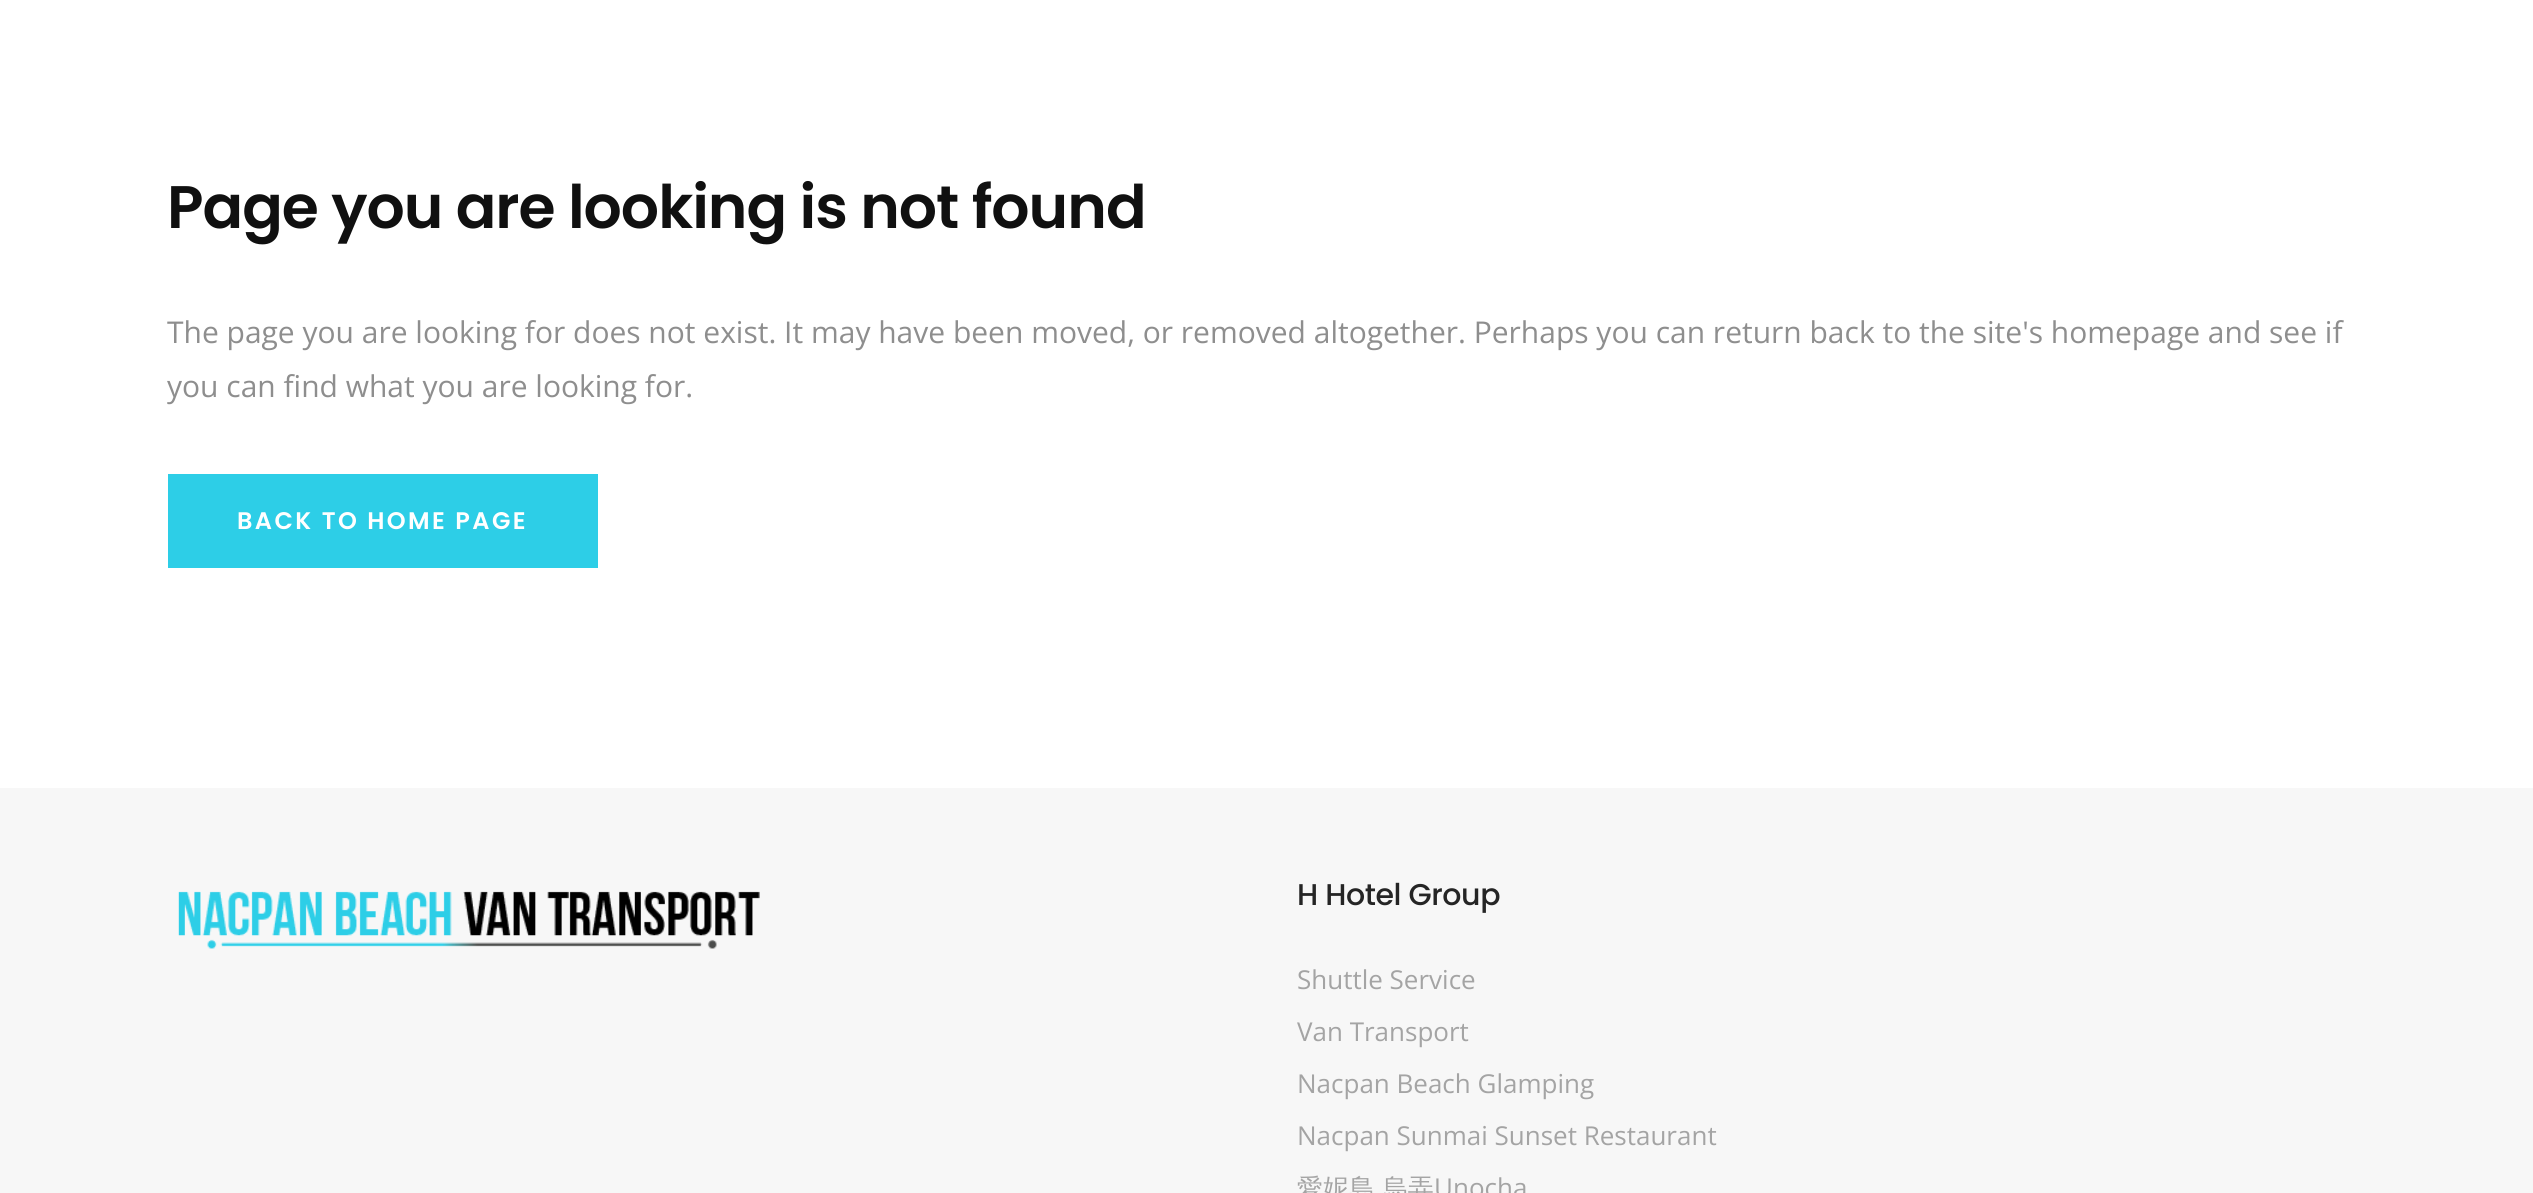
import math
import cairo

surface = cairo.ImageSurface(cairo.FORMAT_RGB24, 2533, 1193)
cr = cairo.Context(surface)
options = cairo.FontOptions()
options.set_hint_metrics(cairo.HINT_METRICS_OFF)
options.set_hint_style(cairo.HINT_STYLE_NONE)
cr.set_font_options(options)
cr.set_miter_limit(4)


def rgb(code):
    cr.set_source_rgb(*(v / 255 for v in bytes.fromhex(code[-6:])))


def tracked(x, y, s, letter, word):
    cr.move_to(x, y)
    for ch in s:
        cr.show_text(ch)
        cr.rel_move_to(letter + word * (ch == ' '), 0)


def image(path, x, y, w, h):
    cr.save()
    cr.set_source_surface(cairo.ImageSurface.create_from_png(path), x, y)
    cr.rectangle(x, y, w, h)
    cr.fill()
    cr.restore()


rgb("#ffffff")
cr.paint()
rgb("#2dcee7")
cr.rectangle(168, 474, 430, 94)
cr.fill()
rgb("#f7f7f7")
cr.rectangle(0, 788, 2533, 405)
cr.fill()
image("img/1.png", 178, 891, 582, 58)
cr.select_font_face("Poppins SemiBold")
cr.set_font_size(60)
rgb("#101010")
tracked(167, 228, "Page you are looking is not found", -1, 0)
cr.select_font_face("Open Sans")
cr.set_font_size(30)
rgb("#8e8e8e")
cr.move_to(167, 343)
cr.show_text("The page you are looking for does not exist. It may have been moved, or removed altogether. Perhaps you can return back to the site's homepage and see if")
cr.move_to(167, 397)
cr.show_text("you can find what you are looking for.")
cr.select_font_face("Poppins SemiBold")
cr.set_font_size(24)
rgb("#ffffff")
tracked(237, 529, "BACK TO HOME PAGE", 2.4, 0)
cr.select_font_face("Poppins Medium")
cr.set_font_size(30)
rgb("#252525")
tracked(1297, 905, "H Hotel Group", -0.4, 0)
cr.select_font_face("Open Sans")
cr.set_font_size(26)
rgb("#a4a4a4")
for x, y, s in [
    (1297, 989, "Shuttle Service"),
    (1297, 1041, "Van Transport"),
    (1297, 1093, "Nacpan Beach Glamping"),
    (1297, 1145, "Nacpan Sunmai Sunset Restaurant"),
]:
    cr.move_to(x, y)
    cr.show_text(s)
cr.select_font_face("WenQuanYi Zen Hei Medium")
tracked(1297, 1197, "愛妮島 烏弄", 0, -1)
cr.select_font_face("Open Sans")
cr.move_to(1434, 1197)
cr.show_text("Unocha")
surface.write_to_png("page.png")
